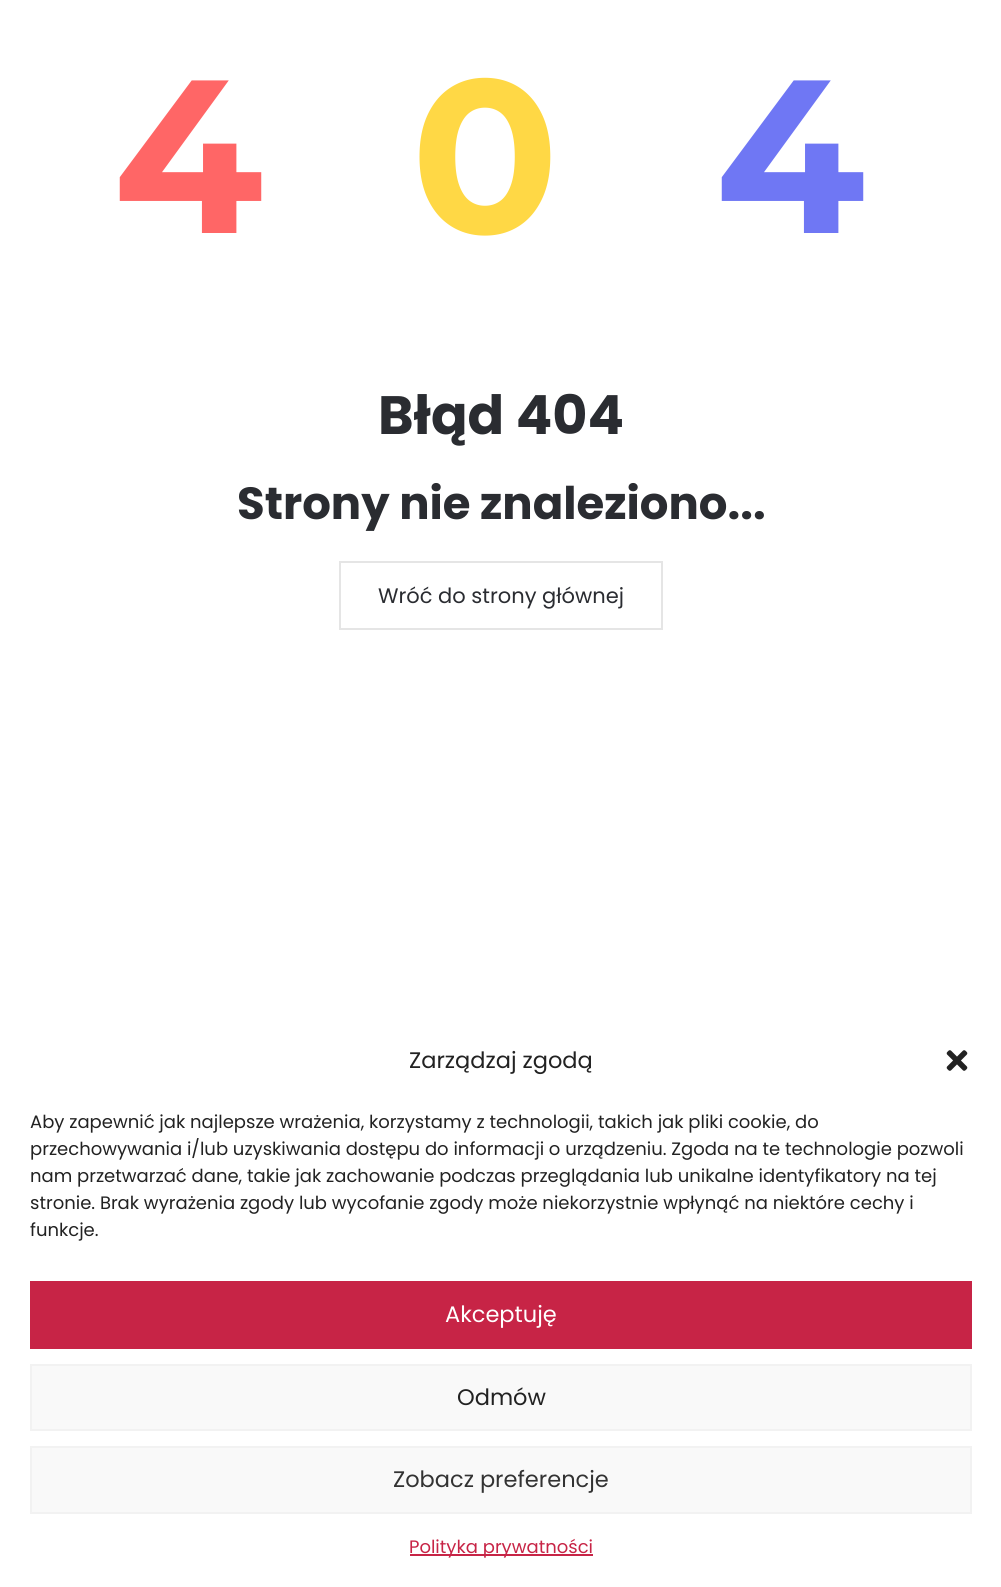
import math
import cairo

surface = cairo.ImageSurface(cairo.FORMAT_RGB24, 1001, 1587)
cr = cairo.Context(surface)
options = cairo.FontOptions()
options.set_hint_metrics(cairo.HINT_METRICS_OFF)
options.set_hint_style(cairo.HINT_STYLE_NONE)
cr.set_font_options(options)
cr.set_miter_limit(4)


def rgb(code):
    cr.set_source_rgb(*(v / 255 for v in bytes.fromhex(code[-6:])))


def image(path, x, y, w, h):
    cr.save()
    cr.set_source_surface(cairo.ImageSurface.create_from_png(path), x, y)
    cr.rectangle(x, y, w, h)
    cr.fill()
    cr.restore()


rgb("#ffffff")
cr.paint()
cr.rectangle(340, 562, 322, 67)
rgb("#e5e5e5")
cr.stroke()
image("img/1.png", 946, 1050, 22, 21)
rgb("#c72446")
cr.rectangle(30, 1281, 942, 68)
cr.fill()
rgb("#f9f9f9")
cr.rectangle(31, 1365, 940, 65)
cr.fill_preserve()
rgb("#f2f2f2")
cr.stroke()
rgb("#f9f9f9")
cr.rectangle(31, 1447, 940, 66)
cr.fill_preserve()
rgb("#f2f2f2")
cr.stroke()
rgb("#c72446")
cr.rectangle(410, 1554, 183, 2)
cr.fill()
cr.select_font_face("Montserrat", cairo.FONT_SLANT_NORMAL, cairo.FONT_WEIGHT_BOLD)
cr.set_font_size(218)
rgb("#ff6666")
cr.move_to(113, 233)
cr.show_text("4")
rgb("#ffd845")
cr.move_to(411, 233)
cr.show_text("0")
rgb("#6f77f4")
cr.move_to(715, 233)
cr.show_text("4")
cr.select_font_face("Poppins", cairo.FONT_SLANT_NORMAL, cairo.FONT_WEIGHT_BOLD)
cr.set_font_size(54)
rgb("#2a2c31")
cr.move_to(378, 434)
cr.show_text("Błąd 404")
cr.set_font_size(45)
cr.move_to(237, 519)
cr.show_text("Strony nie znaleziono...")
cr.select_font_face("Poppins")
cr.set_font_size(21)
cr.move_to(378, 603)
cr.show_text("Wróć do strony głównej")
cr.set_font_size(22.5)
rgb("#222222")
cr.move_to(409, 1068)
cr.show_text("Zarządzaj zgodą")
cr.set_font_size(18)
for x, y, s in [
    (30, 1128, "Aby zapewnić jak najlepsze wrażenia, korzystamy z technologii, takich jak pliki cookie, do"),
    (30, 1155, "przechowywania i/lub uzyskiwania dostępu do informacji o urządzeniu. Zgoda na te technologie pozwoli"),
    (30, 1182, "nam przetwarzać dane, takie jak zachowanie podczas przeglądania lub unikalne identyfikatory na tej"),
    (30, 1209, "stronie. Brak wyrażenia zgody lub wycofanie zgody może niekorzystnie wpłynąć na niektóre cechy i"),
    (30, 1236, "funkcje."),
]:
    cr.move_to(x, y)
    cr.show_text(s)
cr.set_font_size(22.5)
rgb("#ffffff")
cr.move_to(445, 1322)
cr.show_text("Akceptuję")
rgb("#222222")
cr.move_to(457, 1405)
cr.show_text("Odmów")
rgb("#333333")
cr.move_to(393, 1487)
cr.show_text("Zobacz preferencje")
cr.set_font_size(18)
rgb("#c72446")
cr.move_to(409, 1553)
cr.show_text("Polityka prywatności")
surface.write_to_png("page.png")
